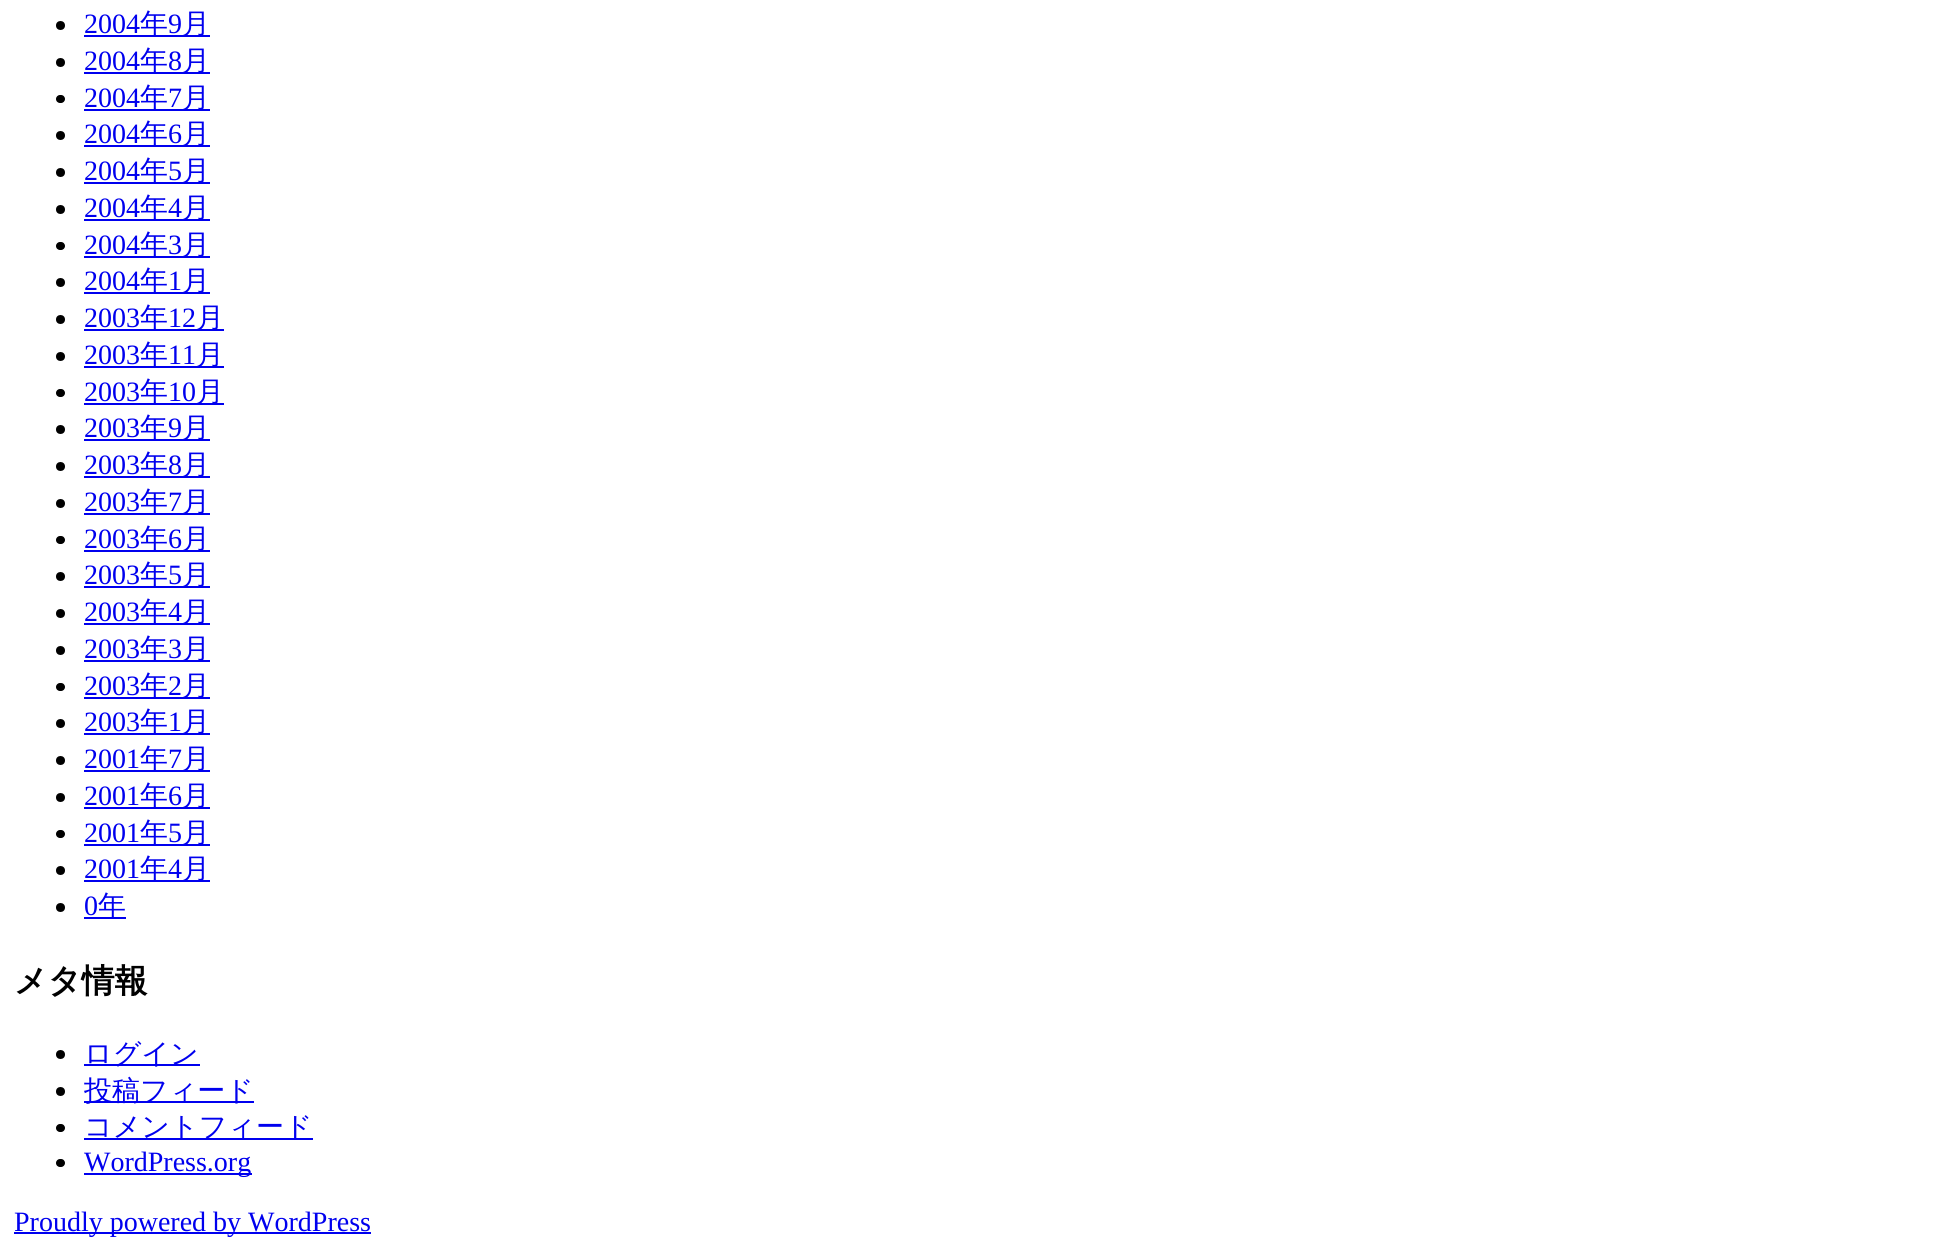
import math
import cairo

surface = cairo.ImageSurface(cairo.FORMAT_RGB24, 1954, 1250)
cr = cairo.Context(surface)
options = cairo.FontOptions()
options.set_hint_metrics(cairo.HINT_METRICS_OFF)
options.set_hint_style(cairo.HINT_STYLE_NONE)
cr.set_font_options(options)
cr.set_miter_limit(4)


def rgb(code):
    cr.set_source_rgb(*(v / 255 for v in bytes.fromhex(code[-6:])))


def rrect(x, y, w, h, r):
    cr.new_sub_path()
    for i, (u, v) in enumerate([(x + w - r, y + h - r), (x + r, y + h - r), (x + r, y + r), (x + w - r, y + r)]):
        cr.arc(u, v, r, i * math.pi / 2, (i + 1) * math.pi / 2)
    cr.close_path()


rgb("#ffffff")
cr.paint()
rgb("#000000")
cr.arc(60.5, 25.5, 4.5, 0, 2 * math.pi)
cr.fill()
rgb("#0000ee")
cr.rectangle(84, 35, 126, 2)
cr.fill()
rgb("#000000")
cr.arc(60.5, 62.5, 4.5, 0, 2 * math.pi)
cr.fill()
rgb("#0000ee")
cr.rectangle(84, 72, 126, 2)
cr.fill()
rgb("#000000")
rrect(56, 95, 9, 8, 4)
cr.fill()
rgb("#0000ee")
cr.rectangle(84, 109, 126, 2)
cr.fill()
rgb("#000000")
cr.arc(60.5, 135.5, 4.5, 0, 2 * math.pi)
cr.fill()
rgb("#0000ee")
cr.rectangle(84, 145, 126, 2)
cr.fill()
rgb("#000000")
cr.arc(60.5, 172.5, 4.5, 0, 2 * math.pi)
cr.fill()
rgb("#0000ee")
cr.rectangle(84, 182, 126, 2)
cr.fill()
rgb("#000000")
cr.arc(60.5, 209.5, 4.5, 0, 2 * math.pi)
cr.fill()
rgb("#0000ee")
cr.rectangle(84, 219, 126, 2)
cr.fill()
rgb("#000000")
rrect(56, 242, 9, 8, 4)
cr.fill()
rgb("#0000ee")
cr.rectangle(84, 256, 126, 2)
cr.fill()
rgb("#000000")
cr.arc(60.5, 282.5, 4.5, 0, 2 * math.pi)
cr.fill()
rgb("#0000ee")
cr.rectangle(84, 292, 126, 2)
cr.fill()
rgb("#000000")
cr.arc(60.5, 319.5, 4.5, 0, 2 * math.pi)
cr.fill()
rgb("#0000ee")
cr.rectangle(84, 329, 140, 2)
cr.fill()
rgb("#000000")
cr.arc(60.5, 356.5, 4.5, 0, 2 * math.pi)
cr.fill()
rgb("#0000ee")
cr.rectangle(84, 366, 140, 2)
cr.fill()
rgb("#000000")
rrect(56, 389, 9, 8, 4)
cr.fill()
rgb("#0000ee")
cr.rectangle(84, 403, 140, 2)
cr.fill()
rgb("#000000")
cr.arc(60.5, 429.5, 4.5, 0, 2 * math.pi)
cr.fill()
rgb("#0000ee")
cr.rectangle(84, 439, 126, 2)
cr.fill()
rgb("#000000")
cr.arc(60.5, 466.5, 4.5, 0, 2 * math.pi)
cr.fill()
rgb("#0000ee")
cr.rectangle(84, 476, 126, 2)
cr.fill()
rgb("#000000")
cr.arc(60.5, 503.5, 4.5, 0, 2 * math.pi)
cr.fill()
rgb("#0000ee")
cr.rectangle(84, 513, 126, 2)
cr.fill()
rgb("#000000")
rrect(56, 536, 9, 8, 4)
cr.fill()
rgb("#0000ee")
cr.rectangle(84, 550, 126, 2)
cr.fill()
rgb("#000000")
cr.arc(60.5, 576.5, 4.5, 0, 2 * math.pi)
cr.fill()
rgb("#0000ee")
cr.rectangle(84, 586, 126, 2)
cr.fill()
rgb("#000000")
cr.arc(60.5, 613.5, 4.5, 0, 2 * math.pi)
cr.fill()
rgb("#0000ee")
cr.rectangle(84, 623, 126, 2)
cr.fill()
rgb("#000000")
cr.arc(60.5, 650.5, 4.5, 0, 2 * math.pi)
cr.fill()
rgb("#0000ee")
cr.rectangle(84, 660, 126, 2)
cr.fill()
rgb("#000000")
rrect(56, 683, 9, 8, 4)
cr.fill()
rgb("#0000ee")
cr.rectangle(84, 697, 126, 2)
cr.fill()
rgb("#000000")
cr.arc(60.5, 723.5, 4.5, 0, 2 * math.pi)
cr.fill()
rgb("#0000ee")
cr.rectangle(84, 733, 126, 2)
cr.fill()
rgb("#000000")
cr.arc(60.5, 760.5, 4.5, 0, 2 * math.pi)
cr.fill()
rgb("#0000ee")
cr.rectangle(84, 770, 126, 2)
cr.fill()
rgb("#000000")
cr.arc(60.5, 797.5, 4.5, 0, 2 * math.pi)
cr.fill()
rgb("#0000ee")
cr.rectangle(84, 807, 126, 2)
cr.fill()
rgb("#000000")
rrect(56, 830, 9, 8, 4)
cr.fill()
rgb("#0000ee")
cr.rectangle(84, 844, 126, 2)
cr.fill()
rgb("#000000")
cr.arc(60.5, 870.5, 4.5, 0, 2 * math.pi)
cr.fill()
rgb("#0000ee")
cr.rectangle(84, 880, 126, 2)
cr.fill()
rgb("#000000")
cr.arc(60.5, 907.5, 4.5, 0, 2 * math.pi)
cr.fill()
rgb("#0000ee")
cr.rectangle(84, 917, 42, 2)
cr.fill()
rgb("#000000")
cr.arc(60.5, 1054.5, 4.5, 0, 2 * math.pi)
cr.fill()
rgb("#0000ee")
cr.rectangle(84, 1064, 116, 2)
cr.fill()
rgb("#000000")
cr.arc(60.5, 1091.5, 4.5, 0, 2 * math.pi)
cr.fill()
rgb("#0000ee")
cr.rectangle(84, 1101, 170, 2)
cr.fill()
rgb("#000000")
rrect(56, 1124, 9, 8, 4)
cr.fill()
rgb("#0000ee")
cr.rectangle(84, 1138, 229, 2)
cr.fill()
rgb("#000000")
rrect(56, 1159, 9, 8, 4)
cr.fill()
rgb("#0000ee")
cr.rectangle(84, 1173, 168, 2)
cr.fill()
cr.rectangle(14, 1232, 357, 2)
cr.fill()
cr.select_font_face("Liberation Serif")
cr.set_font_size(28)
cr.move_to(84, 33)
cr.show_text("2004")
cr.select_font_face("WenQuanYi Zen Hei Medium")
cr.move_to(140, 33)
cr.show_text("年")
cr.select_font_face("Liberation Serif")
cr.move_to(168, 33)
cr.show_text("9")
cr.select_font_face("WenQuanYi Zen Hei Medium")
cr.move_to(182, 33)
cr.show_text("月")
cr.select_font_face("Liberation Serif")
cr.move_to(84, 70)
cr.show_text("2004")
cr.select_font_face("WenQuanYi Zen Hei Medium")
cr.move_to(140, 70)
cr.show_text("年")
cr.select_font_face("Liberation Serif")
cr.move_to(168, 70)
cr.show_text("8")
cr.select_font_face("WenQuanYi Zen Hei Medium")
cr.move_to(182, 70)
cr.show_text("月")
cr.select_font_face("Liberation Serif")
cr.move_to(84, 107)
cr.show_text("2004")
cr.select_font_face("WenQuanYi Zen Hei Medium")
cr.move_to(140, 107)
cr.show_text("年")
cr.select_font_face("Liberation Serif")
cr.move_to(168, 107)
cr.show_text("7")
cr.select_font_face("WenQuanYi Zen Hei Medium")
cr.move_to(182, 107)
cr.show_text("月")
cr.select_font_face("Liberation Serif")
cr.move_to(84, 143)
cr.show_text("2004")
cr.select_font_face("WenQuanYi Zen Hei Medium")
cr.move_to(140, 143)
cr.show_text("年")
cr.select_font_face("Liberation Serif")
cr.move_to(168, 143)
cr.show_text("6")
cr.select_font_face("WenQuanYi Zen Hei Medium")
cr.move_to(182, 143)
cr.show_text("月")
cr.select_font_face("Liberation Serif")
cr.move_to(84, 180)
cr.show_text("2004")
cr.select_font_face("WenQuanYi Zen Hei Medium")
cr.move_to(140, 180)
cr.show_text("年")
cr.select_font_face("Liberation Serif")
cr.move_to(168, 180)
cr.show_text("5")
cr.select_font_face("WenQuanYi Zen Hei Medium")
cr.move_to(182, 180)
cr.show_text("月")
cr.select_font_face("Liberation Serif")
cr.move_to(84, 217)
cr.show_text("2004")
cr.select_font_face("WenQuanYi Zen Hei Medium")
cr.move_to(140, 217)
cr.show_text("年")
cr.select_font_face("Liberation Serif")
cr.move_to(168, 217)
cr.show_text("4")
cr.select_font_face("WenQuanYi Zen Hei Medium")
cr.move_to(182, 217)
cr.show_text("月")
cr.select_font_face("Liberation Serif")
cr.move_to(84, 254)
cr.show_text("2004")
cr.select_font_face("WenQuanYi Zen Hei Medium")
cr.move_to(140, 254)
cr.show_text("年")
cr.select_font_face("Liberation Serif")
cr.move_to(168, 254)
cr.show_text("3")
cr.select_font_face("WenQuanYi Zen Hei Medium")
cr.move_to(182, 254)
cr.show_text("月")
cr.select_font_face("Liberation Serif")
cr.move_to(84, 290)
cr.show_text("2004")
cr.select_font_face("WenQuanYi Zen Hei Medium")
cr.move_to(140, 290)
cr.show_text("年")
cr.select_font_face("Liberation Serif")
cr.move_to(168, 290)
cr.show_text("1")
cr.select_font_face("WenQuanYi Zen Hei Medium")
cr.move_to(182, 290)
cr.show_text("月")
cr.select_font_face("Liberation Serif")
cr.move_to(84, 327)
cr.show_text("2003")
cr.select_font_face("WenQuanYi Zen Hei Medium")
cr.move_to(140, 327)
cr.show_text("年")
cr.select_font_face("Liberation Serif")
cr.move_to(168, 327)
cr.show_text("12")
cr.select_font_face("WenQuanYi Zen Hei Medium")
cr.move_to(196, 327)
cr.show_text("月")
cr.select_font_face("Liberation Serif")
cr.move_to(84, 364)
cr.show_text("2003")
cr.select_font_face("WenQuanYi Zen Hei Medium")
cr.move_to(140, 364)
cr.show_text("年")
cr.select_font_face("Liberation Serif")
cr.move_to(168, 364)
cr.show_text("11")
cr.select_font_face("WenQuanYi Zen Hei Medium")
cr.move_to(196, 364)
cr.show_text("月")
cr.select_font_face("Liberation Serif")
cr.move_to(84, 401)
cr.show_text("2003")
cr.select_font_face("WenQuanYi Zen Hei Medium")
cr.move_to(140, 401)
cr.show_text("年")
cr.select_font_face("Liberation Serif")
cr.move_to(168, 401)
cr.show_text("10")
cr.select_font_face("WenQuanYi Zen Hei Medium")
cr.move_to(196, 401)
cr.show_text("月")
cr.select_font_face("Liberation Serif")
cr.move_to(84, 437)
cr.show_text("2003")
cr.select_font_face("WenQuanYi Zen Hei Medium")
cr.move_to(140, 437)
cr.show_text("年")
cr.select_font_face("Liberation Serif")
cr.move_to(168, 437)
cr.show_text("9")
cr.select_font_face("WenQuanYi Zen Hei Medium")
cr.move_to(182, 437)
cr.show_text("月")
cr.select_font_face("Liberation Serif")
cr.move_to(84, 474)
cr.show_text("2003")
cr.select_font_face("WenQuanYi Zen Hei Medium")
cr.move_to(140, 474)
cr.show_text("年")
cr.select_font_face("Liberation Serif")
cr.move_to(168, 474)
cr.show_text("8")
cr.select_font_face("WenQuanYi Zen Hei Medium")
cr.move_to(182, 474)
cr.show_text("月")
cr.select_font_face("Liberation Serif")
cr.move_to(84, 511)
cr.show_text("2003")
cr.select_font_face("WenQuanYi Zen Hei Medium")
cr.move_to(140, 511)
cr.show_text("年")
cr.select_font_face("Liberation Serif")
cr.move_to(168, 511)
cr.show_text("7")
cr.select_font_face("WenQuanYi Zen Hei Medium")
cr.move_to(182, 511)
cr.show_text("月")
cr.select_font_face("Liberation Serif")
cr.move_to(84, 548)
cr.show_text("2003")
cr.select_font_face("WenQuanYi Zen Hei Medium")
cr.move_to(140, 548)
cr.show_text("年")
cr.select_font_face("Liberation Serif")
cr.move_to(168, 548)
cr.show_text("6")
cr.select_font_face("WenQuanYi Zen Hei Medium")
cr.move_to(182, 548)
cr.show_text("月")
cr.select_font_face("Liberation Serif")
cr.move_to(84, 584)
cr.show_text("2003")
cr.select_font_face("WenQuanYi Zen Hei Medium")
cr.move_to(140, 584)
cr.show_text("年")
cr.select_font_face("Liberation Serif")
cr.move_to(168, 584)
cr.show_text("5")
cr.select_font_face("WenQuanYi Zen Hei Medium")
cr.move_to(182, 584)
cr.show_text("月")
cr.select_font_face("Liberation Serif")
cr.move_to(84, 621)
cr.show_text("2003")
cr.select_font_face("WenQuanYi Zen Hei Medium")
cr.move_to(140, 621)
cr.show_text("年")
cr.select_font_face("Liberation Serif")
cr.move_to(168, 621)
cr.show_text("4")
cr.select_font_face("WenQuanYi Zen Hei Medium")
cr.move_to(182, 621)
cr.show_text("月")
cr.select_font_face("Liberation Serif")
cr.move_to(84, 658)
cr.show_text("2003")
cr.select_font_face("WenQuanYi Zen Hei Medium")
cr.move_to(140, 658)
cr.show_text("年")
cr.select_font_face("Liberation Serif")
cr.move_to(168, 658)
cr.show_text("3")
cr.select_font_face("WenQuanYi Zen Hei Medium")
cr.move_to(182, 658)
cr.show_text("月")
cr.select_font_face("Liberation Serif")
cr.move_to(84, 695)
cr.show_text("2003")
cr.select_font_face("WenQuanYi Zen Hei Medium")
cr.move_to(140, 695)
cr.show_text("年")
cr.select_font_face("Liberation Serif")
cr.move_to(168, 695)
cr.show_text("2")
cr.select_font_face("WenQuanYi Zen Hei Medium")
cr.move_to(182, 695)
cr.show_text("月")
cr.select_font_face("Liberation Serif")
cr.move_to(84, 731)
cr.show_text("2003")
cr.select_font_face("WenQuanYi Zen Hei Medium")
cr.move_to(140, 731)
cr.show_text("年")
cr.select_font_face("Liberation Serif")
cr.move_to(168, 731)
cr.show_text("1")
cr.select_font_face("WenQuanYi Zen Hei Medium")
cr.move_to(182, 731)
cr.show_text("月")
cr.select_font_face("Liberation Serif")
cr.move_to(84, 768)
cr.show_text("2001")
cr.select_font_face("WenQuanYi Zen Hei Medium")
cr.move_to(140, 768)
cr.show_text("年")
cr.select_font_face("Liberation Serif")
cr.move_to(168, 768)
cr.show_text("7")
cr.select_font_face("WenQuanYi Zen Hei Medium")
cr.move_to(182, 768)
cr.show_text("月")
cr.select_font_face("Liberation Serif")
cr.move_to(84, 805)
cr.show_text("2001")
cr.select_font_face("WenQuanYi Zen Hei Medium")
cr.move_to(140, 805)
cr.show_text("年")
cr.select_font_face("Liberation Serif")
cr.move_to(168, 805)
cr.show_text("6")
cr.select_font_face("WenQuanYi Zen Hei Medium")
cr.move_to(182, 805)
cr.show_text("月")
cr.select_font_face("Liberation Serif")
cr.move_to(84, 842)
cr.show_text("2001")
cr.select_font_face("WenQuanYi Zen Hei Medium")
cr.move_to(140, 842)
cr.show_text("年")
cr.select_font_face("Liberation Serif")
cr.move_to(168, 842)
cr.show_text("5")
cr.select_font_face("WenQuanYi Zen Hei Medium")
cr.move_to(182, 842)
cr.show_text("月")
cr.select_font_face("Liberation Serif")
cr.move_to(84, 878)
cr.show_text("2001")
cr.select_font_face("WenQuanYi Zen Hei Medium")
cr.move_to(140, 878)
cr.show_text("年")
cr.select_font_face("Liberation Serif")
cr.move_to(168, 878)
cr.show_text("4")
cr.select_font_face("WenQuanYi Zen Hei Medium")
cr.move_to(182, 878)
cr.show_text("月")
cr.select_font_face("Liberation Serif")
cr.move_to(84, 915)
cr.show_text("0")
cr.select_font_face("WenQuanYi Zen Hei Medium")
cr.move_to(98, 915)
cr.show_text("年")
cr.select_font_face("WenQuanYi Zen Hei", cairo.FONT_SLANT_NORMAL, cairo.FONT_WEIGHT_BOLD)
cr.set_font_size(33)
rgb("#000000")
cr.move_to(14, 992)
cr.show_text("メタ情報")
cr.select_font_face("WenQuanYi Zen Hei Medium")
cr.set_font_size(28)
rgb("#0000ee")
for x, y, s in [
    (84, 1063, "ログイン"),
    (84, 1100, "投稿フィード"),
    (84, 1136, "コメントフィード"),
]:
    cr.move_to(x, y)
    cr.show_text(s)
cr.select_font_face("Liberation Serif")
cr.move_to(84, 1171)
cr.show_text("WordPress.org")
cr.move_to(14, 1231)
cr.show_text("Proudly powered by WordPress")
surface.write_to_png("page.png")
